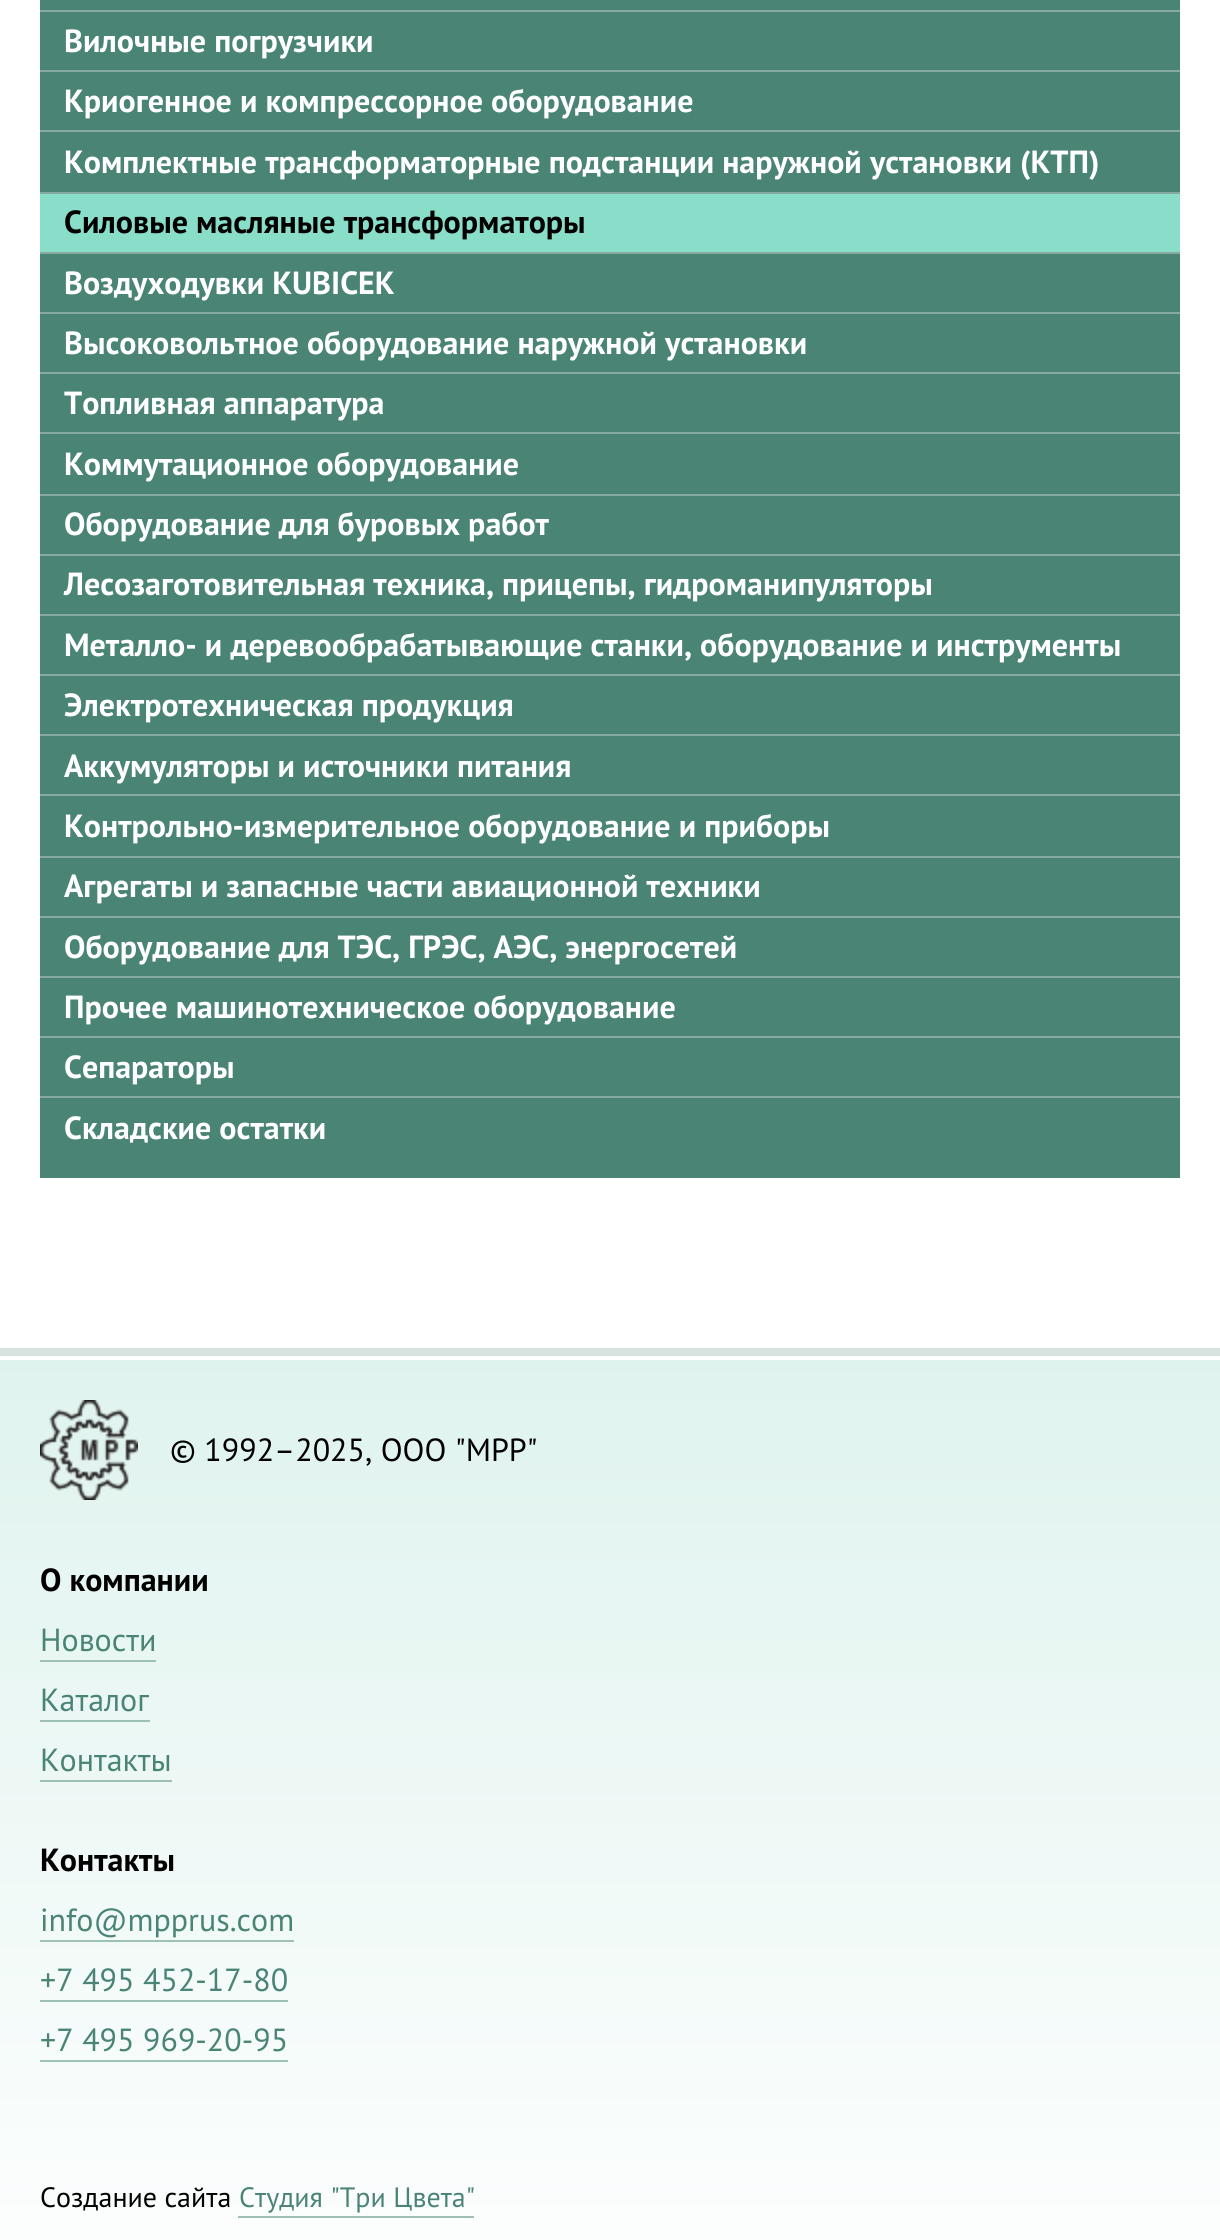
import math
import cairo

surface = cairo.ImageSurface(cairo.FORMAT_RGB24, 1220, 2240)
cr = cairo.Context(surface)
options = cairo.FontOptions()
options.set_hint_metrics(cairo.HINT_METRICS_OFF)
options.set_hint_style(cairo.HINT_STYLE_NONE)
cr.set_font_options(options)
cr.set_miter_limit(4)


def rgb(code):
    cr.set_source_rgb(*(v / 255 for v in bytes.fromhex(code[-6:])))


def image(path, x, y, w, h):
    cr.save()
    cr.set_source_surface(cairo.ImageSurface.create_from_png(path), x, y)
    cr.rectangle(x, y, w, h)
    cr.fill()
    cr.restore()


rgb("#ffffff")
cr.paint()
for x, y, w, h, color in [
    (40, 0, 1140, 1178, "#4a8475"),
    (40, 10, 1140, 2, "#86a9a0"),
    (40, 70, 1140, 2, "#86a9a0"),
    (40, 130, 1140, 2, "#86a9a0"),
    (40, 192, 1140, 2, "#86a9a0"),
    (40, 194, 1140, 58, "#88dec8"),
    (40, 252, 1140, 2, "#86a9a0"),
    (40, 312, 1140, 2, "#86a9a0"),
    (40, 372, 1140, 2, "#86a9a0"),
    (40, 432, 1140, 2, "#86a9a0"),
    (40, 494, 1140, 2, "#86a9a0"),
    (40, 554, 1140, 2, "#86a9a0"),
    (40, 614, 1140, 2, "#86a9a0"),
    (40, 674, 1140, 2, "#86a9a0"),
    (40, 734, 1140, 2, "#86a9a0"),
    (40, 794, 1140, 2, "#86a9a0"),
    (40, 856, 1140, 2, "#86a9a0"),
    (40, 916, 1140, 2, "#86a9a0"),
    (40, 976, 1140, 2, "#86a9a0"),
    (40, 1036, 1140, 2, "#86a9a0"),
    (40, 1096, 1140, 2, "#86a9a0"),
    (0, 1348, 1220, 8, "#d6e3e0"),
]:
    rgb(color)
    cr.rectangle(x, y, w, h)
    cr.fill()
gradient = cairo.LinearGradient(610, 1360, 610, 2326)
gradient.add_color_stop_rgba(0, 0.875, 0.953, 0.933, 1)
gradient.add_color_stop_rgba(1, 1, 1, 1, 1)
cr.set_source(gradient)
cr.rectangle(0, 1360, 1220, 880)
cr.fill()
image("img/1.png", 40, 1400, 98, 100)
for x, y, w, h, color in [
    (40, 1660, 116, 2, "#9fc0b7"),
    (40, 1720, 110, 2, "#9fc0b7"),
    (40, 1780, 132, 2, "#9fc0b7"),
    (40, 1940, 254, 2, "#9fc0b7"),
    (40, 2000, 248, 2, "#9fc0b7"),
    (40, 2060, 248, 2, "#9fc0b7"),
    (238, 2216, 236, 2, "#9fc0b7"),
]:
    rgb(color)
    cr.rectangle(x, y, w, h)
    cr.fill()
cr.select_font_face("PT Sans", cairo.FONT_SLANT_NORMAL, cairo.FONT_WEIGHT_BOLD)
cr.set_font_size(32)
rgb("#ffffff")
for x, y, s in [
    (64, 52, "Вилочные погрузчики"),
    (64, 112, "Криогенное и компрессорное оборудование"),
    (64, 173, "Комплектные трансформаторные подстанции наружной установки (КТП)"),
]:
    cr.move_to(x, y)
    cr.show_text(s)
rgb("#000000")
cr.move_to(64, 233)
cr.show_text("Силовые масляные трансформаторы")
rgb("#ffffff")
for x, y, s in [
    (64, 294, "Воздуходувки KUBICEK"),
    (64, 354, "Высоковольтное оборудование наружной установки"),
    (64, 414, "Топливная аппаратура"),
    (64, 475, "Коммутационное оборудование"),
    (64, 535, "Оборудование для буровых работ"),
    (64, 595, "Лесозаготовительная техника, прицепы, гидроманипуляторы"),
    (64, 656, "Металло- и деревообрабатывающие станки, оборудование и инструменты"),
    (64, 716, "Электротехническая продукция"),
    (64, 777, "Аккумуляторы и источники питания"),
    (64, 837, "Контрольно-измерительное оборудование и приборы"),
    (64, 897, "Агрегаты и запасные части авиационной техники"),
    (64, 958, "Оборудование для ТЭС, ГРЭС, АЭС, энергосетей"),
    (64, 1018, "Прочее машинотехническое оборудование"),
    (64, 1078, "Сепараторы"),
    (64, 1139, "Складские остатки"),
]:
    cr.move_to(x, y)
    cr.show_text(s)
cr.select_font_face("PT Sans")
rgb("#000000")
cr.move_to(170, 1461)
cr.show_text("© 1992–2025, ООО \"МРР\"")
cr.select_font_face("PT Sans", cairo.FONT_SLANT_NORMAL, cairo.FONT_WEIGHT_BOLD)
cr.move_to(40, 1591)
cr.show_text("О компании")
cr.select_font_face("PT Sans")
rgb("#4a8475")
for x, y, s in [
    (40, 1651, "Новости"),
    (40, 1711, "Каталог"),
    (40, 1771, "Контакты"),
]:
    cr.move_to(x, y)
    cr.show_text(s)
cr.select_font_face("PT Sans", cairo.FONT_SLANT_NORMAL, cairo.FONT_WEIGHT_BOLD)
rgb("#000000")
cr.move_to(40, 1871)
cr.show_text("Контакты")
cr.select_font_face("PT Sans")
rgb("#4a8475")
for x, y, s in [
    (40, 1931, "info@mpprus.com"),
    (40, 1991, "+7 495 452-17-80"),
    (40, 2051, "+7 495 969-20-95"),
]:
    cr.move_to(x, y)
    cr.show_text(s)
cr.set_font_size(28)
rgb("#000000")
cr.move_to(40, 2207)
cr.show_text("Создание сайта")
rgb("#4a8475")
cr.move_to(239, 2207)
cr.show_text("Студия \"Три Цвета\"")
surface.write_to_png("page.png")
